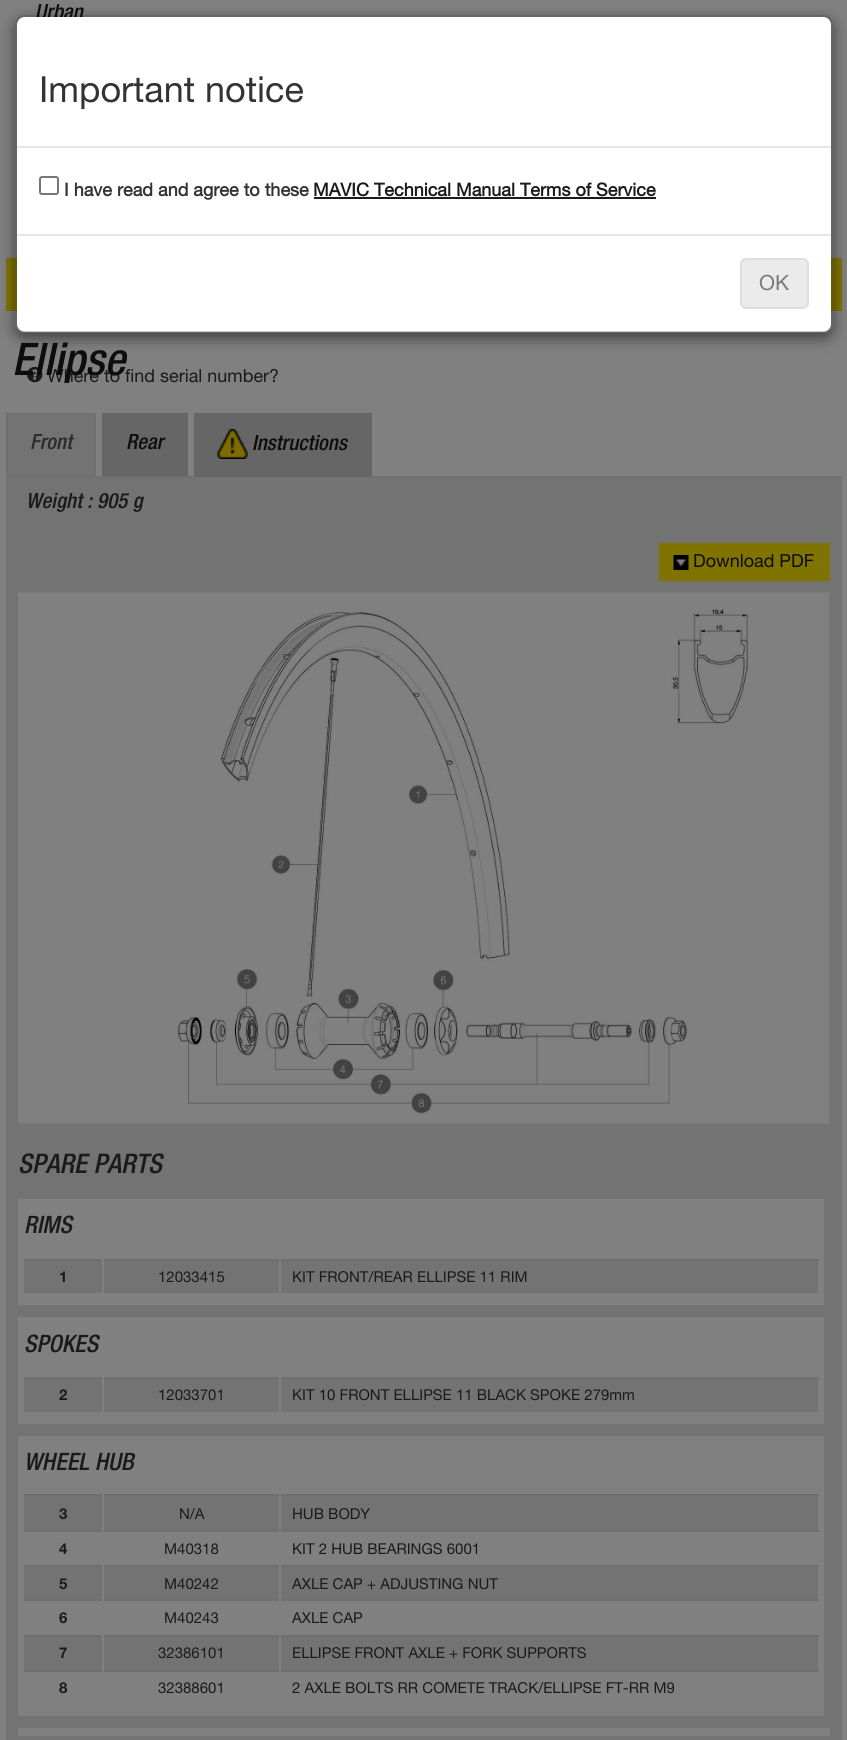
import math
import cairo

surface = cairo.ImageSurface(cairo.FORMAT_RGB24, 847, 1740)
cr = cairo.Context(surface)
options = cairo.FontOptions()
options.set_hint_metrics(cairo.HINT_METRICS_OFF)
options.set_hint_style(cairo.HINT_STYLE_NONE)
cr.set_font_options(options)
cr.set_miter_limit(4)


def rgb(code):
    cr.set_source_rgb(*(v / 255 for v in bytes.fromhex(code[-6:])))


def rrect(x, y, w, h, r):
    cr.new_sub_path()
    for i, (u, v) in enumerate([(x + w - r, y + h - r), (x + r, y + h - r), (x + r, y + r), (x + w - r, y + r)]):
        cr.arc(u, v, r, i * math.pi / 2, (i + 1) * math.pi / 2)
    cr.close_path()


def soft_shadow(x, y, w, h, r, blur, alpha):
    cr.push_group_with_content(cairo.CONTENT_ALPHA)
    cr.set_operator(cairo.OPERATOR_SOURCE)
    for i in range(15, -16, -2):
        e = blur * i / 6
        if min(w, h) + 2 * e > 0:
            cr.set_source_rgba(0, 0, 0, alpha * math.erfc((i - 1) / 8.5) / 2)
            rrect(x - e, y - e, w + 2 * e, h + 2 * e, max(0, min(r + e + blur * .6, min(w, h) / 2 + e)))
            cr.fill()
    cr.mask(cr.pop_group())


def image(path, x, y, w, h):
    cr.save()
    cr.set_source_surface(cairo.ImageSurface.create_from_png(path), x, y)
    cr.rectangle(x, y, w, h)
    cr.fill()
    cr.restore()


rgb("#808080")
cr.paint()
rgb("#807300")
cr.rectangle(6, 258, 836, 53)
cr.fill()
image("img/1.png", 27, 366, 16, 17)
for x, y, w, h, color in [
    (6, 476, 836, 1, "#6f6f6f"),
    (6, 415, 90, 61, "#737373"),
    (6, 413, 90, 2, "#6f6f6f"),
]:
    rgb(color)
    cr.rectangle(x, y, w, h)
    cr.fill()
cr.new_path()
cr.move_to(96, 412)
cr.line_to(96, 476)
cr.line_to(94, 474)
cr.line_to(94, 414)
cr.close_path()
cr.fill()
cr.new_path()
cr.move_to(6, 476)
cr.line_to(6, 412)
cr.line_to(8, 414)
cr.line_to(8, 474)
cr.close_path()
cr.fill()
rgb("#666666")
cr.rectangle(102, 413, 86, 63)
cr.fill()
cr.rectangle(194, 413, 178, 64)
cr.fill()
image("img/2.png", 217, 429, 31, 30)
rgb("#737373")
cr.rectangle(6, 477, 836, 1263)
cr.fill()
rgb("#807300")
cr.rectangle(659, 543, 171, 38)
cr.fill()
image("img/3.png", 673, 555, 16, 15)
image("img/4.png", 18, 592, 812, 532)
for x, y, w, h, color in [
    (18, 1199, 806, 106, "#808080"),
    (24, 1261, 78, 32, "#737373"),
    (24, 1259, 795, 2, "#6f6f6f"),
    (102, 1259, 2, 2, "#808080"),
    (104, 1261, 175, 32, "#737373"),
    (279, 1259, 2, 2, "#808080"),
    (281, 1261, 537, 32, "#737373"),
    (18, 1317, 806, 107, "#808080"),
    (24, 1379, 78, 33, "#737373"),
    (24, 1377, 795, 2, "#6f6f6f"),
    (102, 1377, 2, 2, "#808080"),
    (104, 1379, 175, 33, "#737373"),
    (279, 1377, 2, 2, "#808080"),
    (281, 1379, 537, 33, "#737373"),
    (18, 1436, 806, 280, "#808080"),
    (24, 1496, 78, 34, "#737373"),
    (24, 1494, 795, 2, "#6f6f6f"),
    (102, 1494, 2, 2, "#808080"),
    (104, 1496, 175, 34, "#737373"),
    (279, 1494, 2, 2, "#808080"),
    (281, 1496, 537, 34, "#737373"),
    (24, 1530, 795, 2, "#6f6f6f"),
    (102, 1530, 2, 2, "#808080"),
    (279, 1530, 2, 2, "#808080"),
    (24, 1567, 78, 32, "#737373"),
    (24, 1565, 795, 2, "#6f6f6f"),
    (102, 1565, 2, 2, "#808080"),
    (104, 1567, 175, 32, "#737373"),
    (279, 1565, 2, 2, "#808080"),
    (281, 1567, 537, 32, "#737373"),
    (24, 1599, 795, 2, "#6f6f6f"),
    (102, 1599, 2, 2, "#808080"),
    (279, 1599, 2, 2, "#808080"),
    (24, 1637, 78, 33, "#737373"),
    (24, 1635, 795, 2, "#6f6f6f"),
    (102, 1635, 2, 2, "#808080"),
    (104, 1637, 175, 33, "#737373"),
    (279, 1635, 2, 2, "#808080"),
    (281, 1637, 537, 33, "#737373"),
    (24, 1670, 795, 2, "#6f6f6f"),
    (102, 1670, 2, 2, "#808080"),
    (279, 1670, 2, 2, "#808080"),
    (18, 1728, 812, 8, "#808080"),
]:
    rgb(color)
    cr.rectangle(x, y, w, h)
    cr.fill()
cr.save()
cr.set_fill_rule(cairo.FILL_RULE_EVEN_ODD)
cr.new_path()
cr.move_to(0, 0)
cr.line_to(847, 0)
cr.line_to(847, 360)
cr.line_to(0, 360)
cr.close_path()
cr.move_to(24, 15)
cr.line_to(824, 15)
cr.curve_to(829, 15, 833, 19, 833, 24)
cr.line_to(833, 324)
cr.curve_to(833, 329, 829, 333, 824, 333)
cr.line_to(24, 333)
cr.curve_to(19, 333, 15, 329, 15, 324)
cr.line_to(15, 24)
cr.curve_to(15, 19, 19, 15, 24, 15)
cr.close_path()
cr.clip()
rgb("#000000")
soft_shadow(15, 20, 818, 318, 9, 7, 0.5)
cr.restore()
cr.select_font_face("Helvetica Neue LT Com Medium", cairo.FONT_SLANT_ITALIC)
cr.set_font_size(21)
rgb("#0d0d0d")
cr.move_to(35, 19)
cr.show_text("Urban")
cr.select_font_face("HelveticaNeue")
cr.set_font_size(18)
rgb("#1a1a1a")
cr.move_to(47, 382)
cr.show_text("Where to find serial number?")
cr.select_font_face("Helvetica Neue LT Com Medium", cairo.FONT_SLANT_ITALIC)
cr.set_font_size(45)
rgb("#0d0d0d")
cr.move_to(12, 375)
cr.show_text("Ellipse")
cr.set_font_size(21)
rgb("#2b2b2b")
cr.move_to(30, 449)
cr.show_text("Front")
rgb("#0d0d0d")
cr.move_to(126, 449)
cr.show_text("Rear")
cr.move_to(252, 450)
cr.show_text("Instructions")
rgb("#1a1a1a")
cr.move_to(26, 508)
cr.show_text("Weight : 905 g")
cr.select_font_face("HelveticaNeue")
cr.set_font_size(18)
rgb("#0d0d0d")
cr.move_to(693, 567)
cr.show_text("Download PDF")
cr.select_font_face("Helvetica Neue LT Com Medium", cairo.FONT_SLANT_ITALIC)
cr.set_font_size(27)
rgb("#1a1a1a")
cr.move_to(18, 1173)
cr.show_text("SPARE PARTS")
cr.set_font_size(24)
cr.move_to(24, 1233)
cr.show_text("RIMS")
cr.select_font_face("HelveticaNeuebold", cairo.FONT_SLANT_NORMAL, cairo.FONT_WEIGHT_BOLD)
cr.set_font_size(15)
cr.move_to(59, 1282)
cr.show_text("1")
cr.select_font_face("HelveticaNeue")
cr.move_to(158, 1282)
cr.show_text("12033415")
cr.move_to(292, 1282)
cr.show_text("KIT FRONT/REAR ELLIPSE 11 RIM")
cr.select_font_face("Helvetica Neue LT Com Medium", cairo.FONT_SLANT_ITALIC)
cr.set_font_size(24)
cr.move_to(24, 1352)
cr.show_text("SPOKES")
cr.select_font_face("HelveticaNeuebold", cairo.FONT_SLANT_NORMAL, cairo.FONT_WEIGHT_BOLD)
cr.set_font_size(15)
cr.move_to(59, 1400)
cr.show_text("2")
cr.select_font_face("HelveticaNeue")
cr.move_to(158, 1400)
cr.show_text("12033701")
cr.move_to(292, 1400)
cr.show_text("KIT 10 FRONT ELLIPSE 11 BLACK SPOKE 279mm")
cr.select_font_face("Helvetica Neue LT Com Medium", cairo.FONT_SLANT_ITALIC)
cr.set_font_size(24)
cr.move_to(24, 1470)
cr.show_text("WHEEL HUB")
cr.select_font_face("HelveticaNeuebold", cairo.FONT_SLANT_NORMAL, cairo.FONT_WEIGHT_BOLD)
cr.set_font_size(15)
cr.move_to(59, 1519)
cr.show_text("3")
cr.select_font_face("HelveticaNeue")
cr.move_to(179, 1519)
cr.show_text("N/A")
cr.move_to(292, 1519)
cr.show_text("HUB BODY")
cr.select_font_face("HelveticaNeuebold", cairo.FONT_SLANT_NORMAL, cairo.FONT_WEIGHT_BOLD)
cr.move_to(59, 1554)
cr.show_text("4")
cr.select_font_face("HelveticaNeue")
cr.move_to(164, 1554)
cr.show_text("M40318")
cr.move_to(292, 1554)
cr.show_text("KIT 2 HUB BEARINGS 6001")
cr.select_font_face("HelveticaNeuebold", cairo.FONT_SLANT_NORMAL, cairo.FONT_WEIGHT_BOLD)
cr.move_to(59, 1589)
cr.show_text("5")
cr.select_font_face("HelveticaNeue")
cr.move_to(164, 1589)
cr.show_text("M40242")
cr.move_to(292, 1589)
cr.show_text("AXLE CAP + ADJUSTING NUT")
cr.select_font_face("HelveticaNeuebold", cairo.FONT_SLANT_NORMAL, cairo.FONT_WEIGHT_BOLD)
cr.move_to(59, 1623)
cr.show_text("6")
cr.select_font_face("HelveticaNeue")
cr.move_to(164, 1623)
cr.show_text("M40243")
cr.move_to(292, 1623)
cr.show_text("AXLE CAP")
cr.select_font_face("HelveticaNeuebold", cairo.FONT_SLANT_NORMAL, cairo.FONT_WEIGHT_BOLD)
cr.move_to(59, 1658)
cr.show_text("7")
cr.select_font_face("HelveticaNeue")
cr.move_to(158, 1658)
cr.show_text("32386101")
cr.move_to(292, 1658)
cr.show_text("ELLIPSE FRONT AXLE + FORK SUPPORTS")
cr.select_font_face("HelveticaNeuebold", cairo.FONT_SLANT_NORMAL, cairo.FONT_WEIGHT_BOLD)
cr.move_to(59, 1693)
cr.show_text("8")
cr.select_font_face("HelveticaNeue")
cr.move_to(158, 1693)
cr.show_text("32388601")
cr.move_to(292, 1693)
cr.show_text("2 AXLE BOLTS RR COMETE TRACK/ELLIPSE FT-RR M9")
rgb("#ffffff")
rrect(17, 17, 814, 315, 8)
cr.fill()
rrect(16, 16, 816, 316, 8)
cr.set_source_rgba(0, 0, 0, 0.2)
cr.stroke()
rgb("#e5e5e5")
cr.rectangle(17, 146, 814, 2)
cr.fill()
cr.set_font_size(36)
rgb("#333333")
cr.move_to(39, 102)
cr.show_text("Important notice")
rrect(40, 177, 18, 17, 2)
rgb("#767676")
cr.stroke()
cr.select_font_face("HelveticaNeue", cairo.FONT_SLANT_NORMAL, cairo.FONT_WEIGHT_BOLD)
cr.set_font_size(18)
rgb("#333333")
cr.move_to(64, 196)
cr.show_text("I have read and agree to these")
rgb("#1a1a1a")
cr.move_to(313, 196)
cr.show_text("MAVIC Technical Manual Terms of Service")
cr.rectangle(314, 197, 342, 2)
cr.fill()
rgb("#e5e5e5")
cr.rectangle(17, 234, 814, 2)
cr.fill()
rgb("#ebebeb")
rrect(741, 259, 67, 49, 5)
cr.fill_preserve()
rgb("#dedede")
cr.stroke()
cr.select_font_face("HelveticaNeue")
cr.set_font_size(21)
rgb("#7a7a7a")
cr.move_to(759, 290)
cr.show_text("OK")
surface.write_to_png("page.png")
